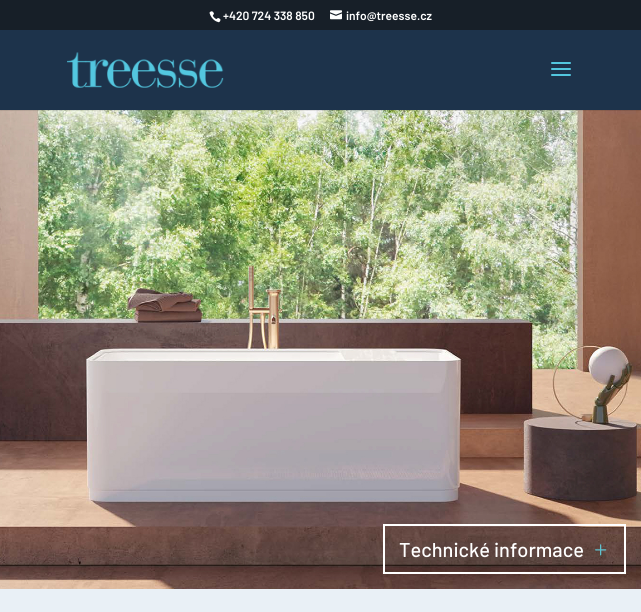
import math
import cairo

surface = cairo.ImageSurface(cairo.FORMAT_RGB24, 641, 612)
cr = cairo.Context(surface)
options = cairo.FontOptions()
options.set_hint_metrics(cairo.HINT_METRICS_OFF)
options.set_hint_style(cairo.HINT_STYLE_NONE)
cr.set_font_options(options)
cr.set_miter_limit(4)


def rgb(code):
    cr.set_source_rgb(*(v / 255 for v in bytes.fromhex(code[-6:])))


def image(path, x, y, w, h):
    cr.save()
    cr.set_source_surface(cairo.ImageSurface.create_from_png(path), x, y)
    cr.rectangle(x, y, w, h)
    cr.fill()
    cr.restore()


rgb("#ffffff")
cr.paint()
rgb("#171f28")
cr.rectangle(0, 0, 641, 30)
cr.fill()
image("img/1.png", 209, 11, 12, 12)
image("img/2.png", 330, 10, 12, 10)
image("img/5.png", 0, 110, 641, 479)
cr.set_source_rgba(0, 0, 0, 0.1)
cr.rectangle(0, 110, 641, 1)
cr.fill()
rgb("#1d334b")
cr.rectangle(0, 30, 641, 80)
cr.fill()
image("img/3.png", 67, 52, 157, 36)
image("img/4.png", 551, 62, 20, 14)
cr.rectangle(384, 525, 241, 48)
rgb("#ffffff")
cr.stroke()
image("img/6.png", 595, 544, 12, 12)
rgb("#e9f0f6")
cr.rectangle(0, 589, 641, 23)
cr.fill()
cr.select_font_face("Barlow SemiBold")
cr.set_font_size(12)
rgb("#ffffff")
cr.move_to(223, 20)
cr.show_text("+420 724 338 850")
cr.move_to(346, 20)
cr.show_text("info@treesse.cz")
cr.select_font_face("Barlow Medium")
cr.set_font_size(20)
cr.move_to(399, 557)
cr.show_text("Technické informace")
surface.write_to_png("page.png")
